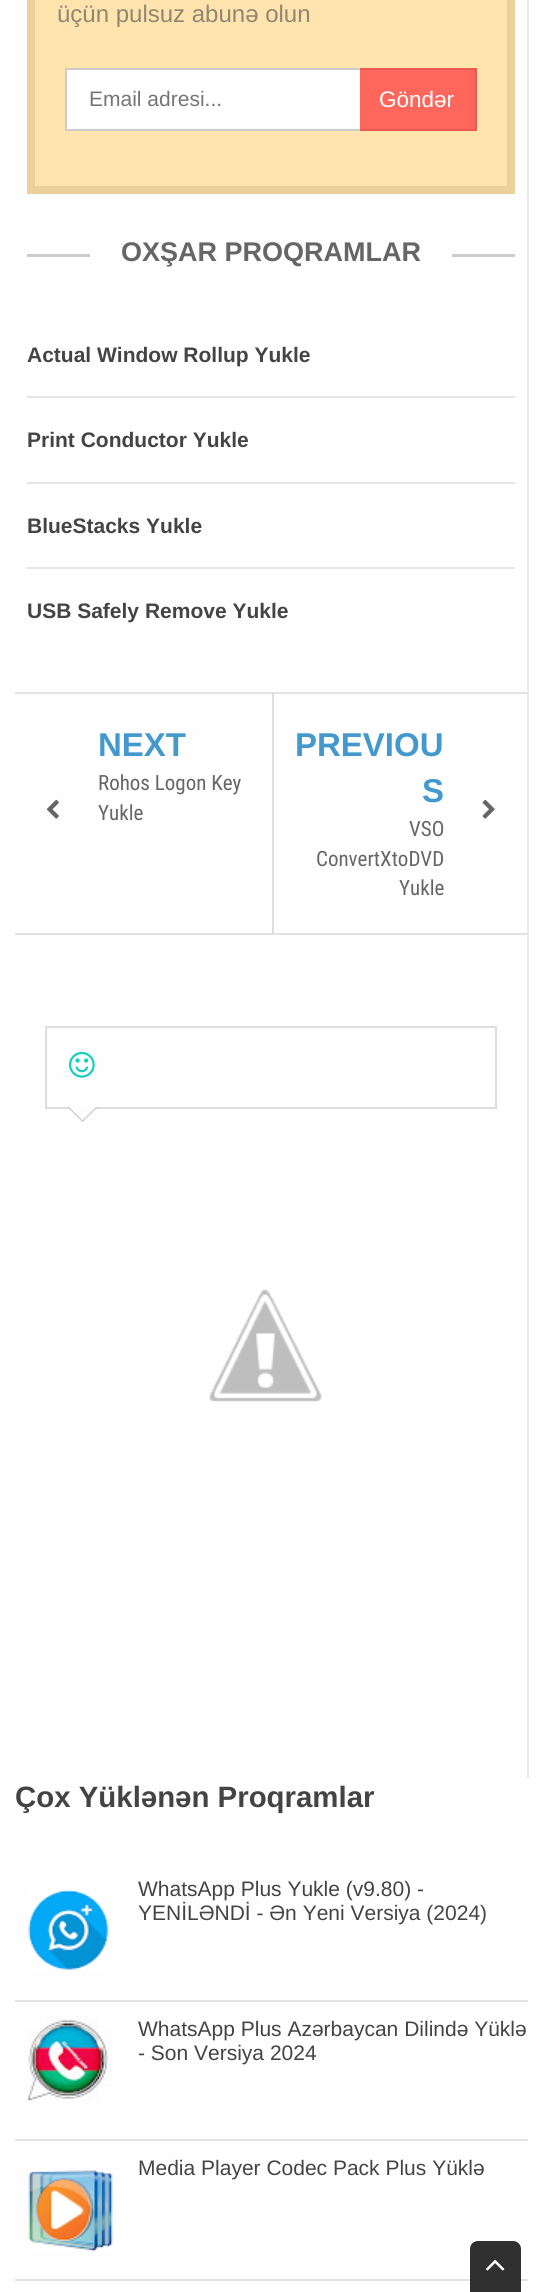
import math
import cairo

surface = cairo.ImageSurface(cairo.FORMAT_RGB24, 543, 2292)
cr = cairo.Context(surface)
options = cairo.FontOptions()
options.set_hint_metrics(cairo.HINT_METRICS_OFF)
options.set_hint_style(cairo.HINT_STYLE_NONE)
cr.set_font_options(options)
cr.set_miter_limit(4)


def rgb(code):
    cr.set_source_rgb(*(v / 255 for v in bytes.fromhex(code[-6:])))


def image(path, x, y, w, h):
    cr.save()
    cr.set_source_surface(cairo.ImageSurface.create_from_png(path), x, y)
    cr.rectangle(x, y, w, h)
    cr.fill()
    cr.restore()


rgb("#fefefe")
cr.paint()
rgb("#e9e9e9")
cr.rectangle(527, 0, 2, 1779)
cr.fill()
rgb("#ffe4ad")
cr.rectangle(31, -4, 480, 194)
cr.fill_preserve()
rgb("#ebd099")
cr.set_line_width(8)
cr.stroke()
rgb("#ff675c")
cr.rectangle(360, 70, 115, 59)
cr.fill()
cr.rectangle(358, 69, 118, 61)
rgb("#ea5a50")
cr.set_line_width(2)
cr.stroke()
for x, y, w, h, color in [
    (67, 70, 293, 59, "#ffffff"),
    (65, 68, 295, 2, "#cccccc"),
    (65, 129, 295, 2, "#cccccc"),
    (65, 68, 2, 63, "#cccccc"),
    (27, 254, 63, 3, "#cccccc"),
    (452, 254, 63, 3, "#cccccc"),
    (27, 396, 488, 2, "#e6e6e6"),
    (27, 482, 488, 2, "#e6e6e6"),
    (27, 567, 488, 2, "#e6e6e6"),
    (15, 692, 512, 2, "#e3e3e3"),
    (15, 933, 512, 2, "#e3e3e3"),
]:
    rgb(color)
    cr.rectangle(x, y, w, h)
    cr.fill()
image("img/1.png", 46, 799, 13, 20)
rgb("#dddddd")
cr.rectangle(272, 693, 2, 240)
cr.fill()
image("img/2.png", 482, 799, 13, 20)
cr.rectangle(46, 1027, 450, 81)
cr.stroke()
image("img/3.png", 69, 1051, 26, 27)
rgb("#c3c3c3")
cr.new_path()
cr.move_to(67.5, 1107)
cr.line_to(97.5, 1107)
cr.line_to(82.5, 1122)
cr.close_path()
cr.fill()
rgb("#fdfdfd")
cr.new_path()
cr.move_to(69, 1107)
cr.line_to(96, 1107)
cr.line_to(82.5, 1120.5)
cr.close_path()
cr.fill()
image("img/4.png", 209, 1289, 113, 113)
image("img/5.png", 28, 1890, 81, 80)
rgb("#e3e3e3")
cr.rectangle(15, 2000, 513, 2)
cr.fill()
image("img/6.png", 27, 2016, 84, 85)
cr.rectangle(15, 2139, 513, 2)
cr.fill()
image("img/7.png", 28, 2170, 85, 81)
cr.rectangle(15, 2279, 513, 2)
cr.fill()
rgb("#303030")
cr.new_path()
cr.move_to(478, 2241)
cr.line_to(513, 2241)
cr.curve_to(517.5, 2241, 521, 2244.5, 521, 2249)
cr.line_to(521, 2292)
cr.line_to(470, 2292)
cr.line_to(470, 2249)
cr.curve_to(470, 2244.5, 473.5, 2241, 478, 2241)
cr.close_path()
cr.fill()
image("img/8.png", 486, 2259, 19, 12)
cr.select_font_face("Liberation Sans")
cr.set_font_size(24)
rgb("#908672")
cr.move_to(57, 22)
cr.show_text("üçün pulsuz abunə olun")
cr.set_font_size(21)
rgb("#757575")
cr.move_to(89, 106)
cr.show_text("Email adresi...")
cr.set_font_size(22.5)
rgb("#ffffff")
cr.move_to(379, 107)
cr.show_text("Göndər")
cr.select_font_face("Liberation Sans", cairo.FONT_SLANT_NORMAL, cairo.FONT_WEIGHT_BOLD)
cr.set_font_size(27)
rgb("#666666")
cr.move_to(121, 261)
cr.show_text("OXŞAR PROQRAMLAR")
cr.set_font_size(21)
rgb("#444444")
for x, y, s in [
    (27, 362, "Actual Window Rollup Yukle"),
    (27, 447, "Print Conductor Yukle"),
    (27, 533, "BlueStacks Yukle"),
    (27, 618, "USB Safely Remove Yukle"),
]:
    cr.move_to(x, y)
    cr.show_text(s)
cr.set_font_size(33)
rgb("#4399cd")
cr.move_to(98, 756)
cr.show_text("NEXT")
cr.select_font_face("Roboto Condensed")
cr.set_font_size(21)
rgb("#666666")
cr.move_to(98, 790)
cr.show_text("Rohos Logon Key")
cr.move_to(98, 820)
cr.show_text("Yukle")
cr.select_font_face("Liberation Sans", cairo.FONT_SLANT_NORMAL, cairo.FONT_WEIGHT_BOLD)
cr.set_font_size(33)
rgb("#4399cd")
cr.move_to(295, 756)
cr.show_text("PREVIOU")
cr.move_to(422, 802)
cr.show_text("S")
cr.select_font_face("Roboto Condensed")
cr.set_font_size(21)
rgb("#666666")
for x, y, s in [
    (409, 836, "VSO"),
    (316, 866, "ConvertXtoDVD"),
    (399, 895, "Yukle"),
]:
    cr.move_to(x, y)
    cr.show_text(s)
cr.select_font_face("Liberation Sans", cairo.FONT_SLANT_NORMAL, cairo.FONT_WEIGHT_BOLD)
cr.set_font_size(29.4)
rgb("#444444")
cr.move_to(15, 1807)
cr.show_text("Çox Yüklənən Proqramlar")
cr.select_font_face("Liberation Sans")
cr.set_font_size(21)
for x, y, s in [
    (138, 1896, "WhatsApp Plus Yukle (v9.80) -"),
    (138, 1920, "YENİLƏNDİ - Ən Yeni Versiya (2024)"),
    (138, 2036, "WhatsApp Plus Azərbaycan Dilində Yüklə"),
    (138, 2060, "- Son Versiya 2024"),
    (138, 2175, "Media Player Codec Pack Plus Yüklə"),
]:
    cr.move_to(x, y)
    cr.show_text(s)
surface.write_to_png("page.png")
